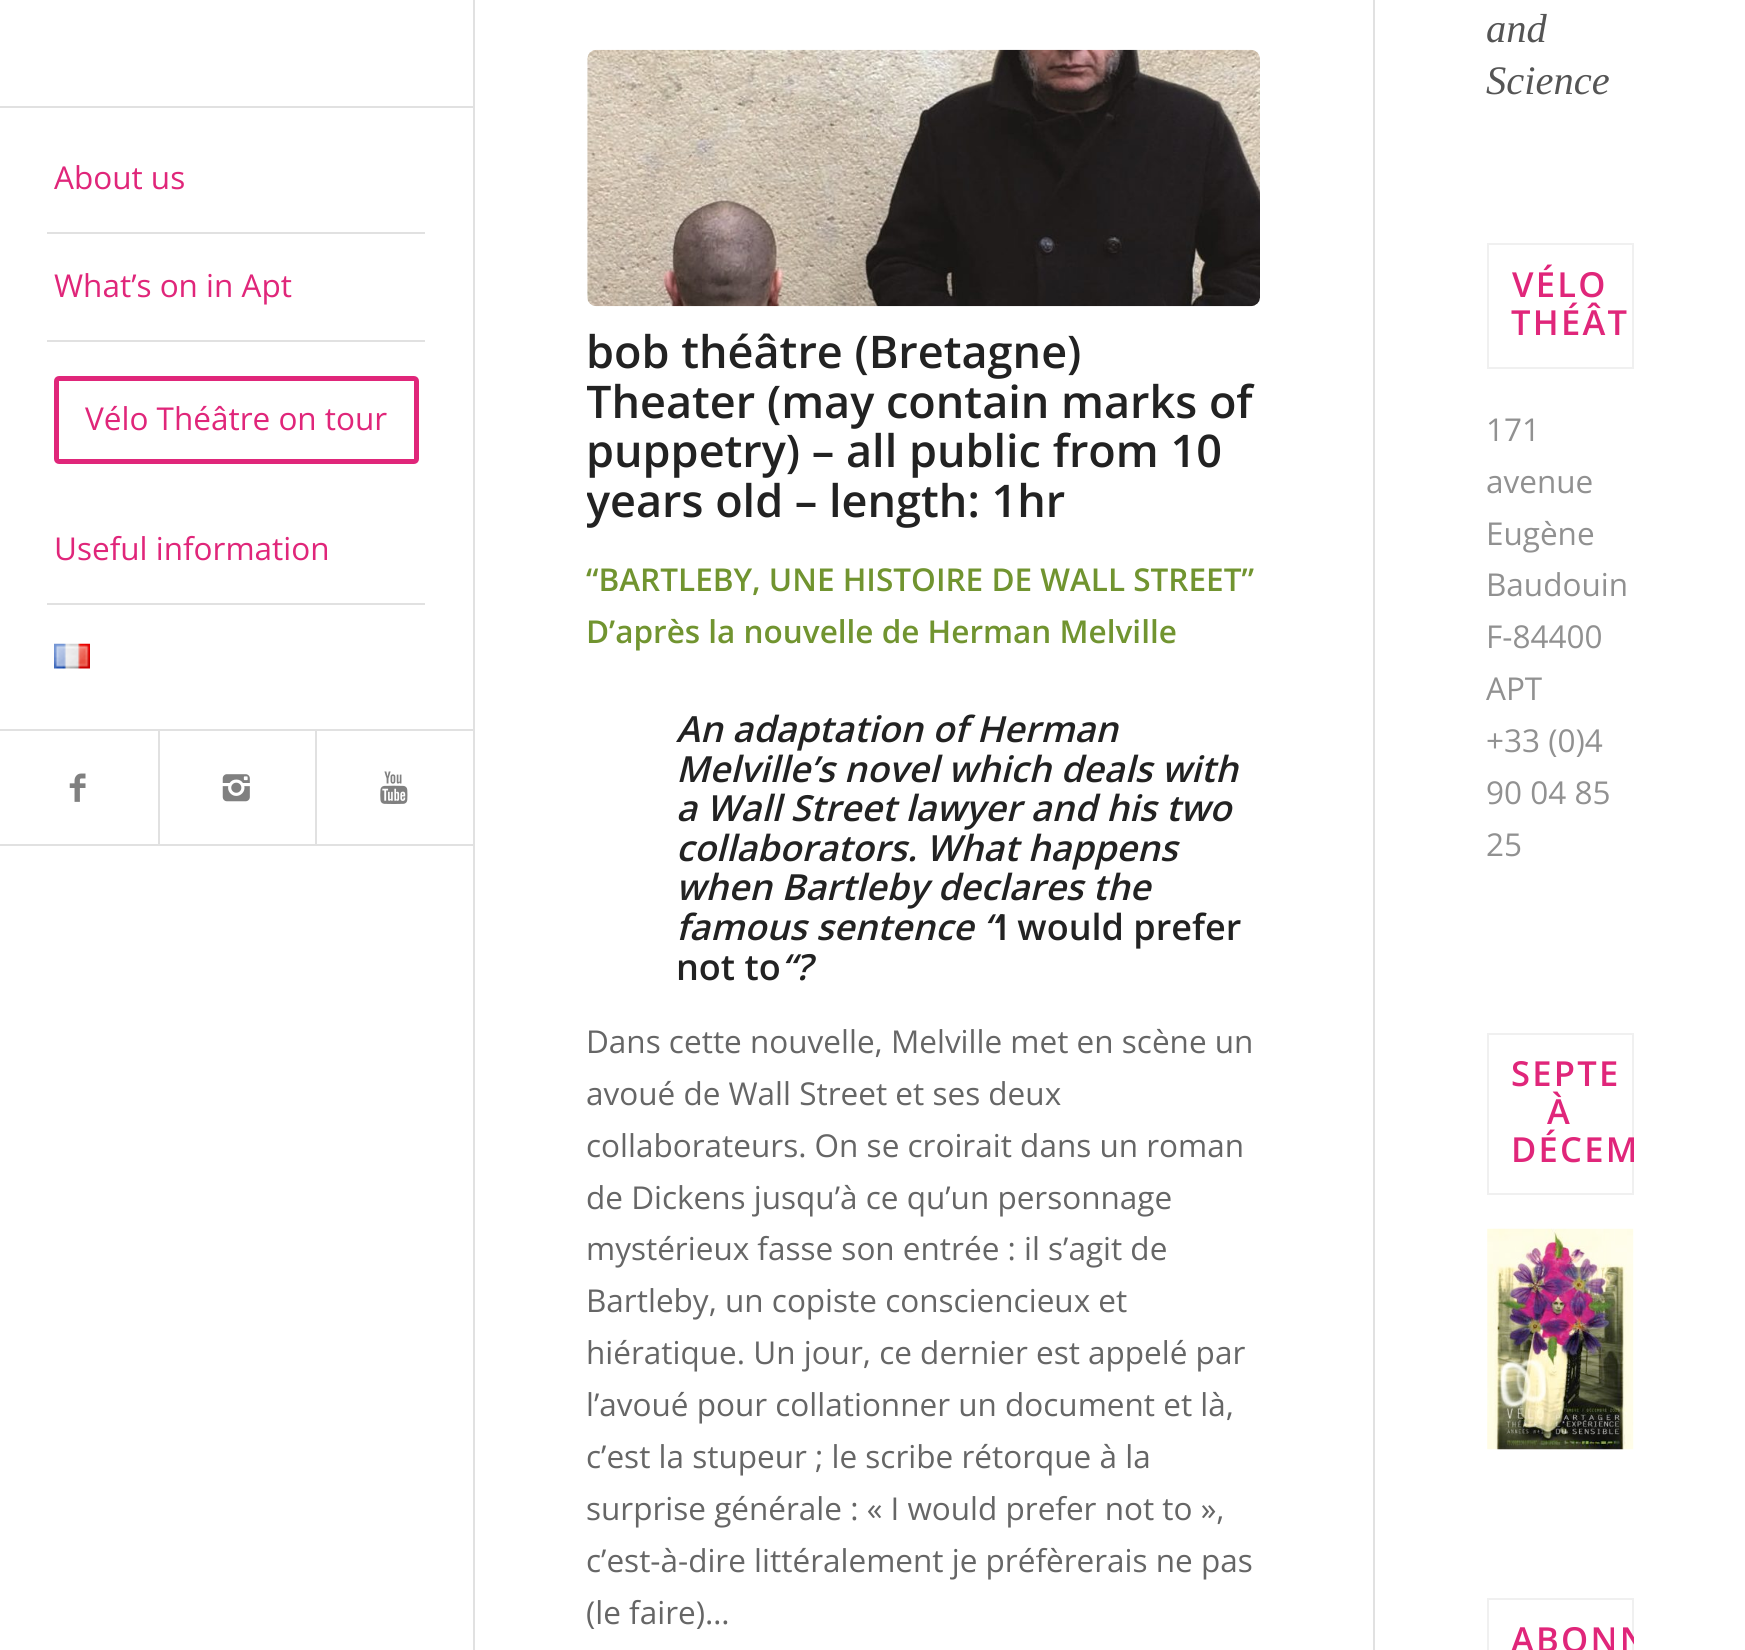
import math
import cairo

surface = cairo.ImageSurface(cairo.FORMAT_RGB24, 1745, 1650)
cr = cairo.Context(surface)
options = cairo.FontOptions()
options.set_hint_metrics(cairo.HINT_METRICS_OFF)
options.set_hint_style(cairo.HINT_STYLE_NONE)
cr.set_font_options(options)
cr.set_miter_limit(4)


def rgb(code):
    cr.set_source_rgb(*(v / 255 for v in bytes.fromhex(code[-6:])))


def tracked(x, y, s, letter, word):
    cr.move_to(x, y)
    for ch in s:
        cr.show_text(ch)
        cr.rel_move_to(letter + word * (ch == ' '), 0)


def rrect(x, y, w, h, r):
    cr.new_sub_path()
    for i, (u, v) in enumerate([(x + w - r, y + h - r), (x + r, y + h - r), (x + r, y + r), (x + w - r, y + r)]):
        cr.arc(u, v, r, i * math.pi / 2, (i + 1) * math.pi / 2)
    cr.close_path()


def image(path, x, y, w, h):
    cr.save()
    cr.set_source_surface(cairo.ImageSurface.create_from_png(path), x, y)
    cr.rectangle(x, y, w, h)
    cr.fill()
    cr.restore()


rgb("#ffffff")
cr.paint()
for x, y, w, h, color in [
    (0, 844, 473, 2, "#e1e1e1"),
    (0, 106, 473, 2, "#e1e1e1"),
    (47, 232, 378, 2, "#e1e1e1"),
    (47, 340, 378, 2, "#e1e1e1"),
]:
    rgb(color)
    cr.rectangle(x, y, w, h)
    cr.fill()
rrect(56.5, 378.5, 360, 83, 2.5)
rgb("#e0267a")
cr.set_line_width(5)
cr.stroke()
rgb("#e1e1e1")
cr.rectangle(47, 603, 378, 2)
cr.fill()
image("img/1.png", 54, 643, 36, 26)
cr.rectangle(0, 729, 473, 2)
cr.fill()
image("img/2.png", 69, 773, 17, 29)
cr.rectangle(158, 731, 2, 113)
cr.fill()
image("img/3.png", 222, 774, 28, 28)
cr.rectangle(315, 731, 2, 113)
cr.fill()
image("img/4.png", 380, 771, 28, 33)
cr.rectangle(473, 0, 2, 1650)
cr.fill()
cr.rectangle(1373, 0, 2, 1650)
cr.fill()
image("img/5.png", 587, 49, 673, 258)
cr.rectangle(1488, 244, 145, 124)
rgb("#f0f0f0")
cr.set_line_width(2)
cr.stroke()
cr.rectangle(1488, 1034, 145, 160)
cr.stroke()
image("img/6.png", 1487, 1228, 147, 222)
cr.rectangle(1488, 1599, 145, 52)
cr.stroke()
cr.select_font_face("Open Sans")
cr.set_font_size(31.5)
rgb("#e0267a")
for x, y, s in [
    (54, 189, "About us"),
    (54, 297, "What’s on in Apt"),
    (85, 430, "Vélo Théâtre on tour"),
    (54, 560, "Useful information"),
]:
    cr.move_to(x, y)
    cr.show_text(s)
cr.select_font_face("Open Sans SemiBold")
cr.set_font_size(45)
rgb("#222222")
cr.move_to(586, 368)
cr.show_text("bob théâtre (Bretagne)")
cr.save()
cr.rectangle(587, 0, 786, 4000)
cr.clip()
cr.move_to(586, 418)
cr.show_text("Theater (may contain marks of")
cr.restore()
cr.move_to(586, 467)
cr.show_text("puppetry) – all public from 10")
cr.save()
cr.rectangle(587, 0, 786, 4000)
cr.clip()
cr.move_to(586, 517)
cr.show_text("years old – length: 1hr")
cr.restore()
cr.set_font_size(31.5)
rgb("#719430")
cr.move_to(586, 591)
cr.show_text("“BARTLEBY, UNE HISTOIRE DE WALL STREET”")
cr.move_to(586, 643)
cr.show_text("D’après la nouvelle de Herman Melville")
cr.select_font_face("Open Sans SemiBold", cairo.FONT_SLANT_ITALIC)
cr.set_font_size(36)
rgb("#222222")
for x, y, s in [
    (676, 742, "An adaptation of Herman"),
    (676, 782, "Melville’s novel which deals with"),
    (676, 821, "a Wall Street lawyer and his two"),
    (676, 861, "collaborators. What happens"),
    (676, 900, "when Bartleby declares the"),
    (676, 940, "famous sentence “"),
]:
    cr.move_to(x, y)
    cr.show_text(s)
cr.select_font_face("Open Sans SemiBold")
cr.move_to(997, 940)
cr.show_text("I would prefer")
cr.move_to(676, 980)
cr.show_text("not to")
cr.select_font_face("Open Sans SemiBold", cairo.FONT_SLANT_ITALIC)
cr.move_to(781, 980)
cr.show_text("“?")
cr.select_font_face("Open Sans")
cr.set_font_size(31.5)
rgb("#666666")
for x, y, s in [
    (586, 1053, "Dans cette nouvelle, Melville met en scène un"),
    (586, 1105, "avoué de Wall Street et ses deux"),
    (586, 1157, "collaborateurs. On se croirait dans un roman"),
    (586, 1209, "de Dickens jusqu’à ce qu’un personnage"),
    (586, 1260, "mystérieux fasse son entrée : il s’agit de"),
    (586, 1312, "Bartleby, un copiste consciencieux et"),
    (586, 1364, "hiératique. Un jour, ce dernier est appelé par"),
    (586, 1416, "l’avoué pour collationner un document et là,"),
    (586, 1468, "c’est la stupeur ; le scribe rétorque à la"),
    (586, 1520, "surprise générale : « I would prefer not to »,"),
    (586, 1572, "c’est-à-dire littéralement je préfèrerais ne pas"),
    (586, 1624, "(le faire)…"),
]:
    cr.move_to(x, y)
    cr.show_text(s)
cr.select_font_face("Liberation Serif", cairo.FONT_SLANT_ITALIC)
cr.set_font_size(40.5)
rgb("#555555")
cr.move_to(1486, 42)
cr.show_text("and")
cr.move_to(1486, 94)
cr.show_text("Science")
cr.select_font_face("Open Sans SemiBold")
cr.set_font_size(34.5)
rgb("#e0267a")
tracked(1512, 297, "VÉLO", 2.25, 0)
tracked(1511, 335, "THÉÂT", 2.25, 0)
cr.select_font_face("Open Sans")
cr.set_font_size(31.5)
rgb("#919191")
for x, y, s in [
    (1486, 441, "171"),
    (1486, 493, "avenue"),
    (1486, 545, "Eugène"),
    (1486, 596, "Baudouin"),
    (1486, 648, "F-84400"),
    (1486, 700, "APT"),
    (1486, 752, "+33 (0)4"),
    (1486, 804, "90 04 85"),
    (1486, 856, "25"),
]:
    cr.move_to(x, y)
    cr.show_text(s)
cr.select_font_face("Open Sans SemiBold")
cr.set_font_size(34.5)
rgb("#e0267a")
tracked(1511, 1086, "SEPTE", 2.25, 0)
tracked(1547, 1124, "À", 2.25, 0)
cr.save()
cr.rectangle(1375, 0, 259, 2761)
cr.clip()
tracked(1511, 1162, "DÉCEM", 2.25, 0)
tracked(1511, 1652, "ABONN", 2.25, 0)
cr.restore()
surface.write_to_png("page.png")
